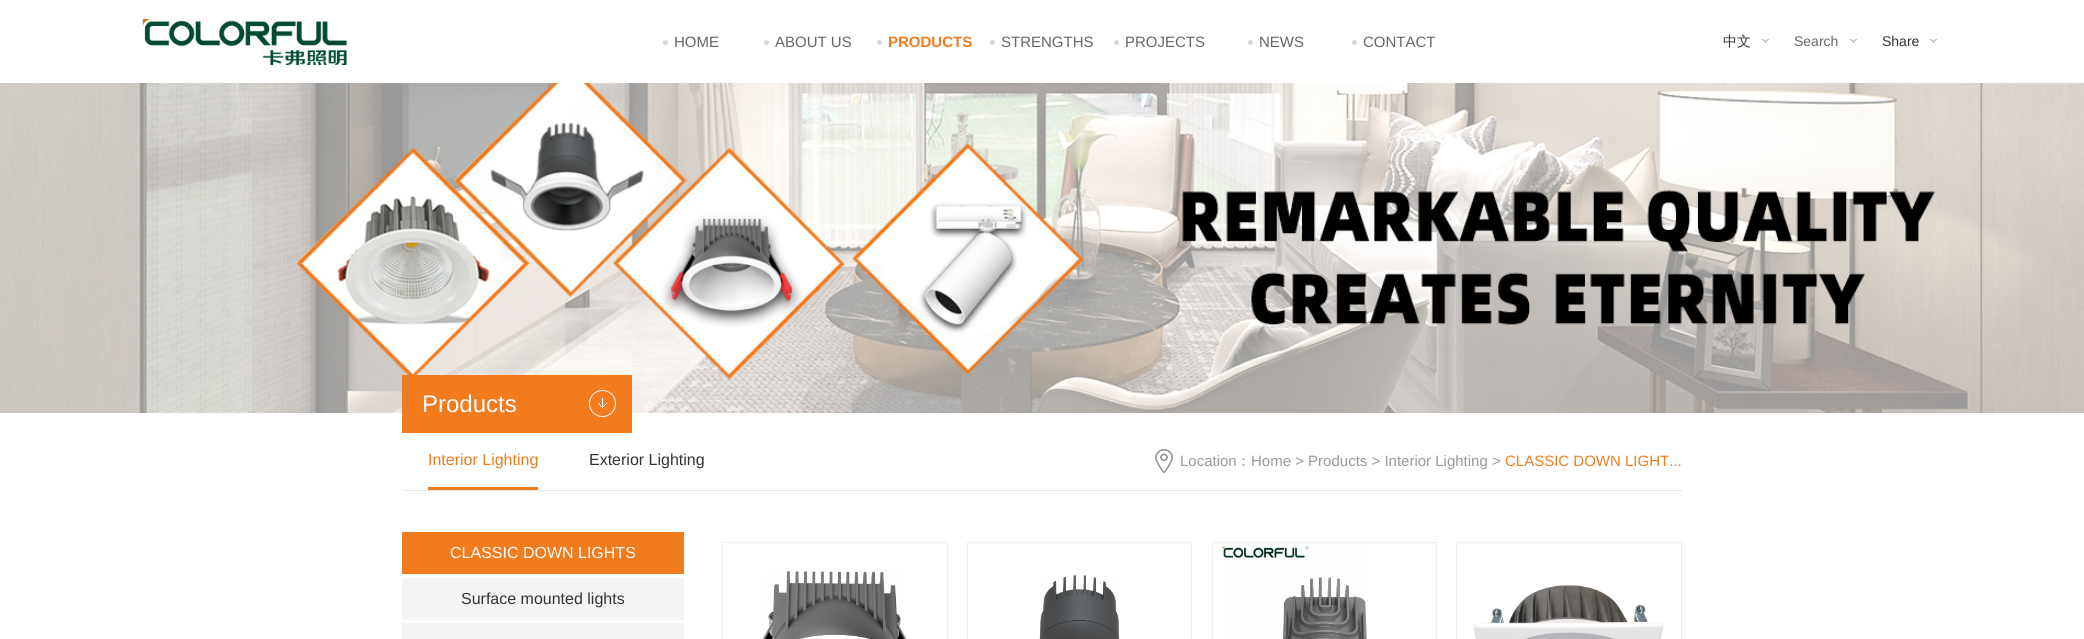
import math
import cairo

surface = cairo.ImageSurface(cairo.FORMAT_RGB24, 2084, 639)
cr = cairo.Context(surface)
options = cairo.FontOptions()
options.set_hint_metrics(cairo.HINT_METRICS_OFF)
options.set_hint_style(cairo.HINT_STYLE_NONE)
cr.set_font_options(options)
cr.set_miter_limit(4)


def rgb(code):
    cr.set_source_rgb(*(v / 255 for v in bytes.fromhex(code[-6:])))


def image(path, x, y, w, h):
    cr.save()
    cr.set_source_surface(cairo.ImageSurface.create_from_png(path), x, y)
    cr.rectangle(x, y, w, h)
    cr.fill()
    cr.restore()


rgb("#ffffff")
cr.paint()
image("img/1.png", 142, 19, 205, 50)
rgb("#d8d8d8")
cr.arc(665.5, 42.5, 2.5, 0, 2 * math.pi)
cr.fill()
cr.arc(766.5, 42.5, 2.5, 0, 2 * math.pi)
cr.fill()
cr.arc(879.5, 42.5, 2.5, 0, 2 * math.pi)
cr.fill()
cr.arc(992.5, 42.5, 2.5, 0, 2 * math.pi)
cr.fill()
cr.arc(1116.5, 42.5, 2.5, 0, 2 * math.pi)
cr.fill()
cr.arc(1250.5, 42.5, 2.5, 0, 2 * math.pi)
cr.fill()
cr.arc(1354.5, 42.5, 2.5, 0, 2 * math.pi)
cr.fill()
image("img/2.png", 1762, 39, 7, 4)
image("img/2.png", 1850, 39, 7, 4)
image("img/2.png", 1930, 39, 7, 4)
image("img/3.png", 0, 83, 2084, 330)
rgb("#f27b1e")
cr.rectangle(402, 375, 230, 58)
cr.fill()
image("img/4.png", 589, 390, 27, 27)
rgb("#e6e6e6")
cr.rectangle(402, 490, 1280, 1)
cr.fill()
rgb("#f27b1e")
cr.rectangle(428, 487, 110, 3)
cr.fill()
image("img/5.png", 1155, 449, 18, 24)
for x, y, w, h, color in [
    (402, 532, 282, 42, "#f27b1e"),
    (402, 578, 282, 42, "#f4f4f4"),
    (402, 623, 282, 16, "#f4f4f4"),
]:
    rgb(color)
    cr.rectangle(x, y, w, h)
    cr.fill()
cr.rectangle(722.5, 542.5, 225, 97)
rgb("#eeeeee")
cr.set_line_width(1)
cr.stroke()
image("img/6.png", 762, 571, 145, 68)
cr.rectangle(967.5, 542.5, 224, 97)
cr.stroke()
image("img/7.png", 1039, 575, 81, 64)
cr.rectangle(1212.5, 542.5, 224, 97)
cr.stroke()
image("img/8.png", 1222, 545, 145, 94)
cr.rectangle(1456.5, 542.5, 225, 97)
cr.stroke()
image("img/9.png", 1473, 585, 191, 54)
cr.select_font_face("Liberation Sans")
cr.set_font_size(15)
rgb("#666666")
cr.move_to(674, 47)
cr.show_text("HOME")
cr.move_to(775, 47)
cr.show_text("ABOUT US")
cr.select_font_face("Liberation Sans", cairo.FONT_SLANT_NORMAL, cairo.FONT_WEIGHT_BOLD)
rgb("#f27b1e")
cr.move_to(888, 47)
cr.show_text("PRODUCTS")
cr.select_font_face("Liberation Sans")
rgb("#666666")
for x, y, s in [
    (1001, 47, "STRENGTHS"),
    (1125, 47, "PROJECTS"),
    (1259, 47, "NEWS"),
    (1363, 47, "CONTACT"),
]:
    cr.move_to(x, y)
    cr.show_text(s)
cr.select_font_face("WenQuanYi Zen Hei Medium")
cr.set_font_size(14)
rgb("#333333")
cr.move_to(1723, 46)
cr.show_text("中文")
cr.select_font_face("Liberation Sans")
rgb("#666666")
cr.move_to(1794, 46)
cr.show_text("Search")
rgb("#333333")
cr.move_to(1882, 46)
cr.show_text("Share")
cr.set_font_size(24)
rgb("#ffffff")
cr.move_to(422, 412)
cr.show_text("Products")
cr.set_font_size(16)
rgb("#f27b1e")
cr.move_to(428, 465)
cr.show_text("Interior Lighting")
rgb("#333333")
cr.move_to(589, 465)
cr.show_text("Exterior Lighting")
cr.set_font_size(15)
rgb("#999999")
cr.move_to(1180, 466)
cr.show_text("Location")
cr.select_font_face("WenQuanYi Zen Hei Medium")
cr.move_to(1236, 466)
cr.show_text("：")
cr.select_font_face("Liberation Sans")
cr.move_to(1251, 466)
cr.show_text("Home > Products > Interior Lighting >")
rgb("#f27b1e")
cr.move_to(1505, 466)
cr.show_text("CLASSIC DOWN LIGHT...")
cr.set_font_size(16)
rgb("#ffffff")
cr.move_to(450, 558)
cr.show_text("CLASSIC DOWN LIGHTS")
rgb("#333333")
cr.move_to(461, 604)
cr.show_text("Surface mounted lights")
surface.write_to_png("page.png")
